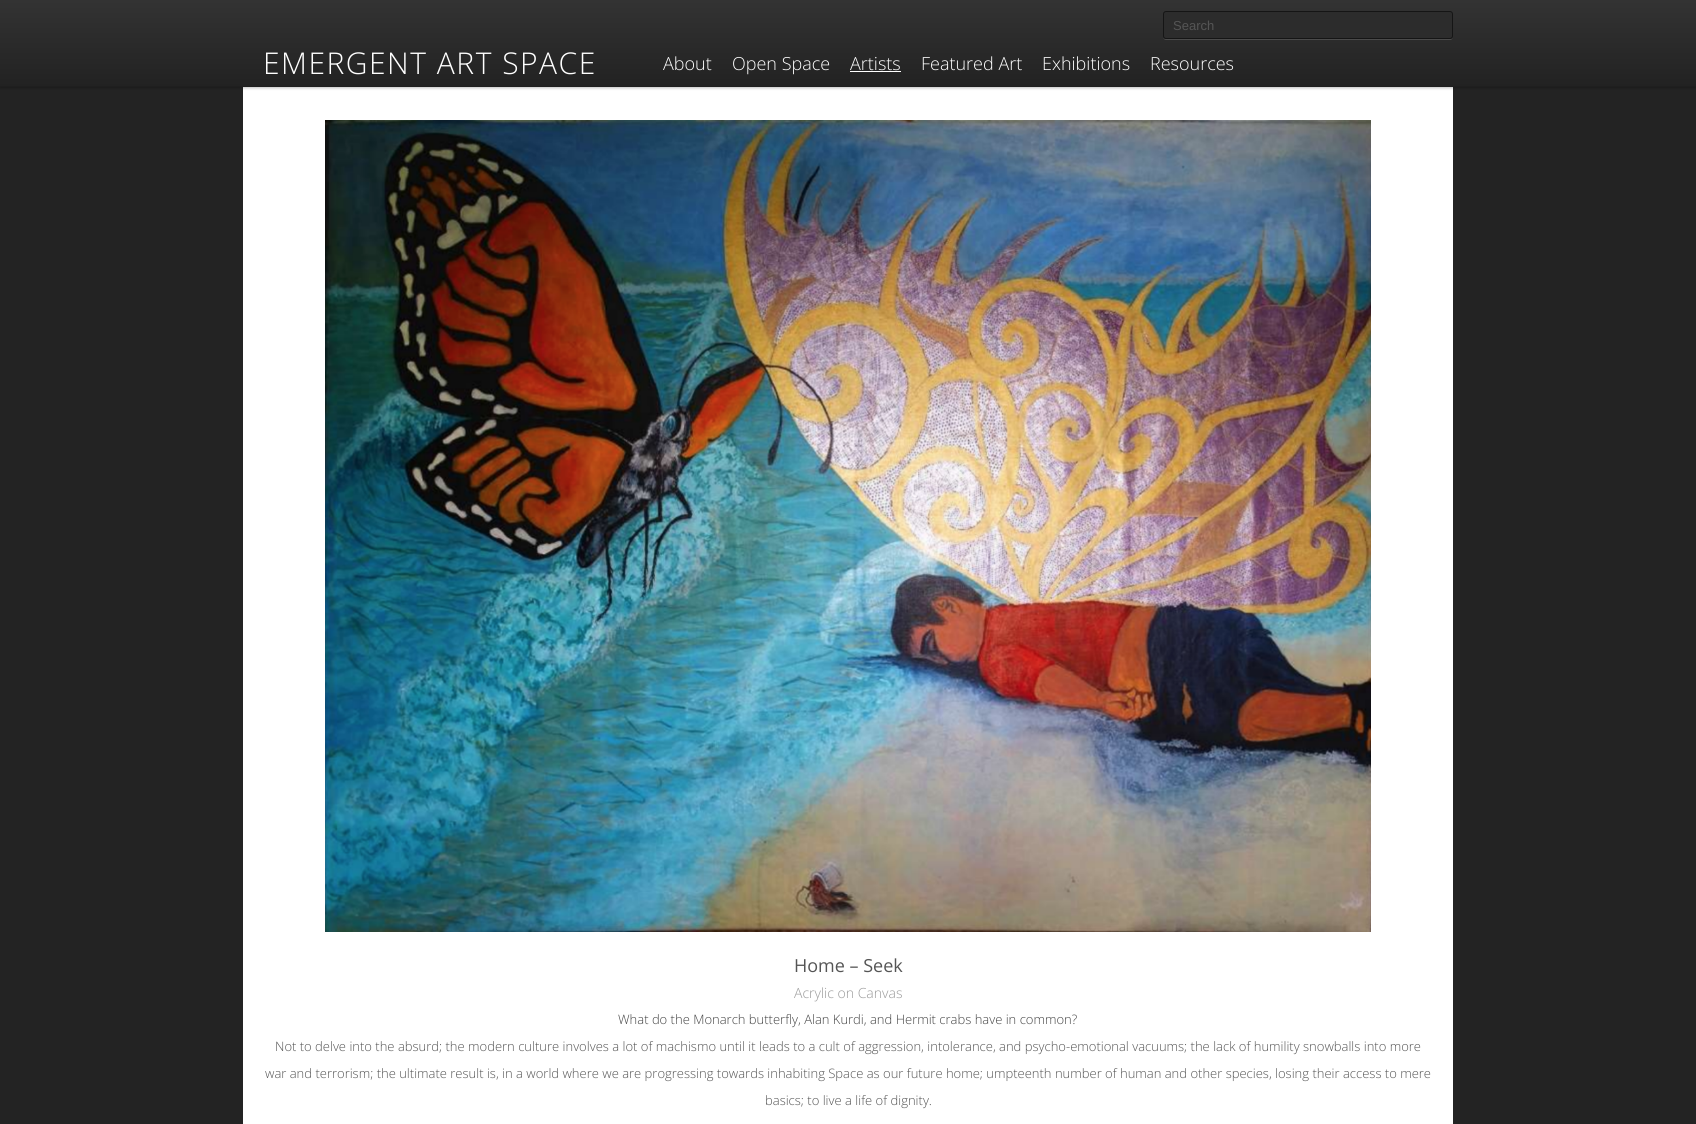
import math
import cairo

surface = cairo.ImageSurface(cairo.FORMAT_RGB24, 1696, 1124)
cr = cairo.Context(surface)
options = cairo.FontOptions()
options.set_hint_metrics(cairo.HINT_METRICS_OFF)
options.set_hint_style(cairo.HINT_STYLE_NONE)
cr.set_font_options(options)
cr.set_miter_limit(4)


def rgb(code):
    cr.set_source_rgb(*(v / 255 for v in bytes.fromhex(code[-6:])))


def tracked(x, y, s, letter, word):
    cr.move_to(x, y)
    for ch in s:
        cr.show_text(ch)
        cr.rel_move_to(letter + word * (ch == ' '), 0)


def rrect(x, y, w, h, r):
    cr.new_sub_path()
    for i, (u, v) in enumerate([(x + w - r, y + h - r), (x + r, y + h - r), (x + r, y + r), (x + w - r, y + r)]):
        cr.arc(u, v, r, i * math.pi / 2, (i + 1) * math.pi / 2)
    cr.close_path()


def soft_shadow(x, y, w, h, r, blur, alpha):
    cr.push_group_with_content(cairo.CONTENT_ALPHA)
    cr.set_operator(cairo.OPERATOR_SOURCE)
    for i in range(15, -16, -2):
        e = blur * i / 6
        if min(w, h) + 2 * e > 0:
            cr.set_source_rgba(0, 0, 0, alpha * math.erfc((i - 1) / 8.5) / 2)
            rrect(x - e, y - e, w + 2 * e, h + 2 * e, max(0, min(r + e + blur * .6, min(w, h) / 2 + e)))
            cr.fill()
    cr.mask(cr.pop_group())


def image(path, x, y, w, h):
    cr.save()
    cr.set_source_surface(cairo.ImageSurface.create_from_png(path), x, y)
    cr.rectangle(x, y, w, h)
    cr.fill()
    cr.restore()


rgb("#232323")
cr.paint()
rgb("#ffffff")
cr.rectangle(243, 87, 1210, 1037)
cr.fill()
rgb("#000000")
soft_shadow(0, 1, 1696, 87, 0, 1.5, 0.25)
gradient = cairo.LinearGradient(848, 0, 848, 87)
gradient.add_color_stop_rgba(0, 0.2, 0.2, 0.2, 1)
gradient.add_color_stop_rgba(1, 0.133, 0.133, 0.133, 1)
cr.set_source(gradient)
cr.rectangle(0, 0, 1696, 86)
cr.fill()
rgb("#1f1f1f")
cr.rectangle(0, 86, 1696, 1)
cr.fill()
rgb("#4b4b4b")
cr.new_path()
cr.move_to(1163, 36)
cr.curve_to(1163, 38, 1164, 40, 1166, 40)
cr.line_to(1450, 40)
cr.curve_to(1452, 40, 1453, 38, 1453, 36)
cr.curve_to(1453, 38, 1452, 39, 1450, 39)
cr.line_to(1166, 39)
cr.curve_to(1164, 39, 1163, 38, 1163, 36)
cr.close_path()
cr.fill()
rgb("#2c2c2c")
rrect(1163.5, 11.5, 289, 27, 2.5)
cr.fill_preserve()
rgb("#151515")
cr.set_line_width(1)
cr.stroke()
rgb("#ffffff")
cr.rectangle(850, 71, 51, 1)
cr.fill()
image("img/1.png", 325, 120, 1046, 812)
cr.select_font_face("Liberation Sans")
cr.set_font_size(13)
rgb("#555555")
cr.move_to(1173, 30)
cr.show_text("Search")
cr.select_font_face("Open Sans Light")
cr.set_font_size(30)
rgb("#ffffff")
tracked(263, 74, "EMERGENT ART SPACE", 1.5, 0)
cr.set_font_size(18)
for x, y, s in [
    (663, 70, "About"),
    (732, 70, "Open Space"),
    (850, 70, "Artists"),
    (921, 70, "Featured Art"),
    (1042, 70, "Exhibitions"),
    (1150, 70, "Resources"),
]:
    cr.move_to(x, y)
    cr.show_text(s)
cr.select_font_face("Open Sans")
rgb("#555555")
cr.move_to(794, 972)
cr.show_text("Home – Seek")
cr.select_font_face("Open Sans Light")
cr.set_font_size(14)
rgb("#999999")
cr.move_to(794, 998)
cr.show_text("Acrylic on Canvas")
cr.set_font_size(13)
rgb("#444444")
cr.move_to(618, 1024)
cr.show_text("What do the Monarch butterfly, Alan Kurdi, and Hermit crabs have in common?")
rgb("#555555")
for x, y, s in [
    (275, 1051, "Not to delve into the absurd; the modern culture involves a lot of machismo until it leads to a cult of aggression, intolerance, and psycho-emotional vacuums; the lack of humility snowballs into more"),
    (265, 1078, "war and terrorism; the ultimate result is, in a world where we are progressing towards inhabiting Space as our future home; umpteenth number of human and other species, losing their access to mere"),
    (765, 1105, "basics; to live a life of dignity."),
]:
    cr.move_to(x, y)
    cr.show_text(s)
surface.write_to_png("page.png")
